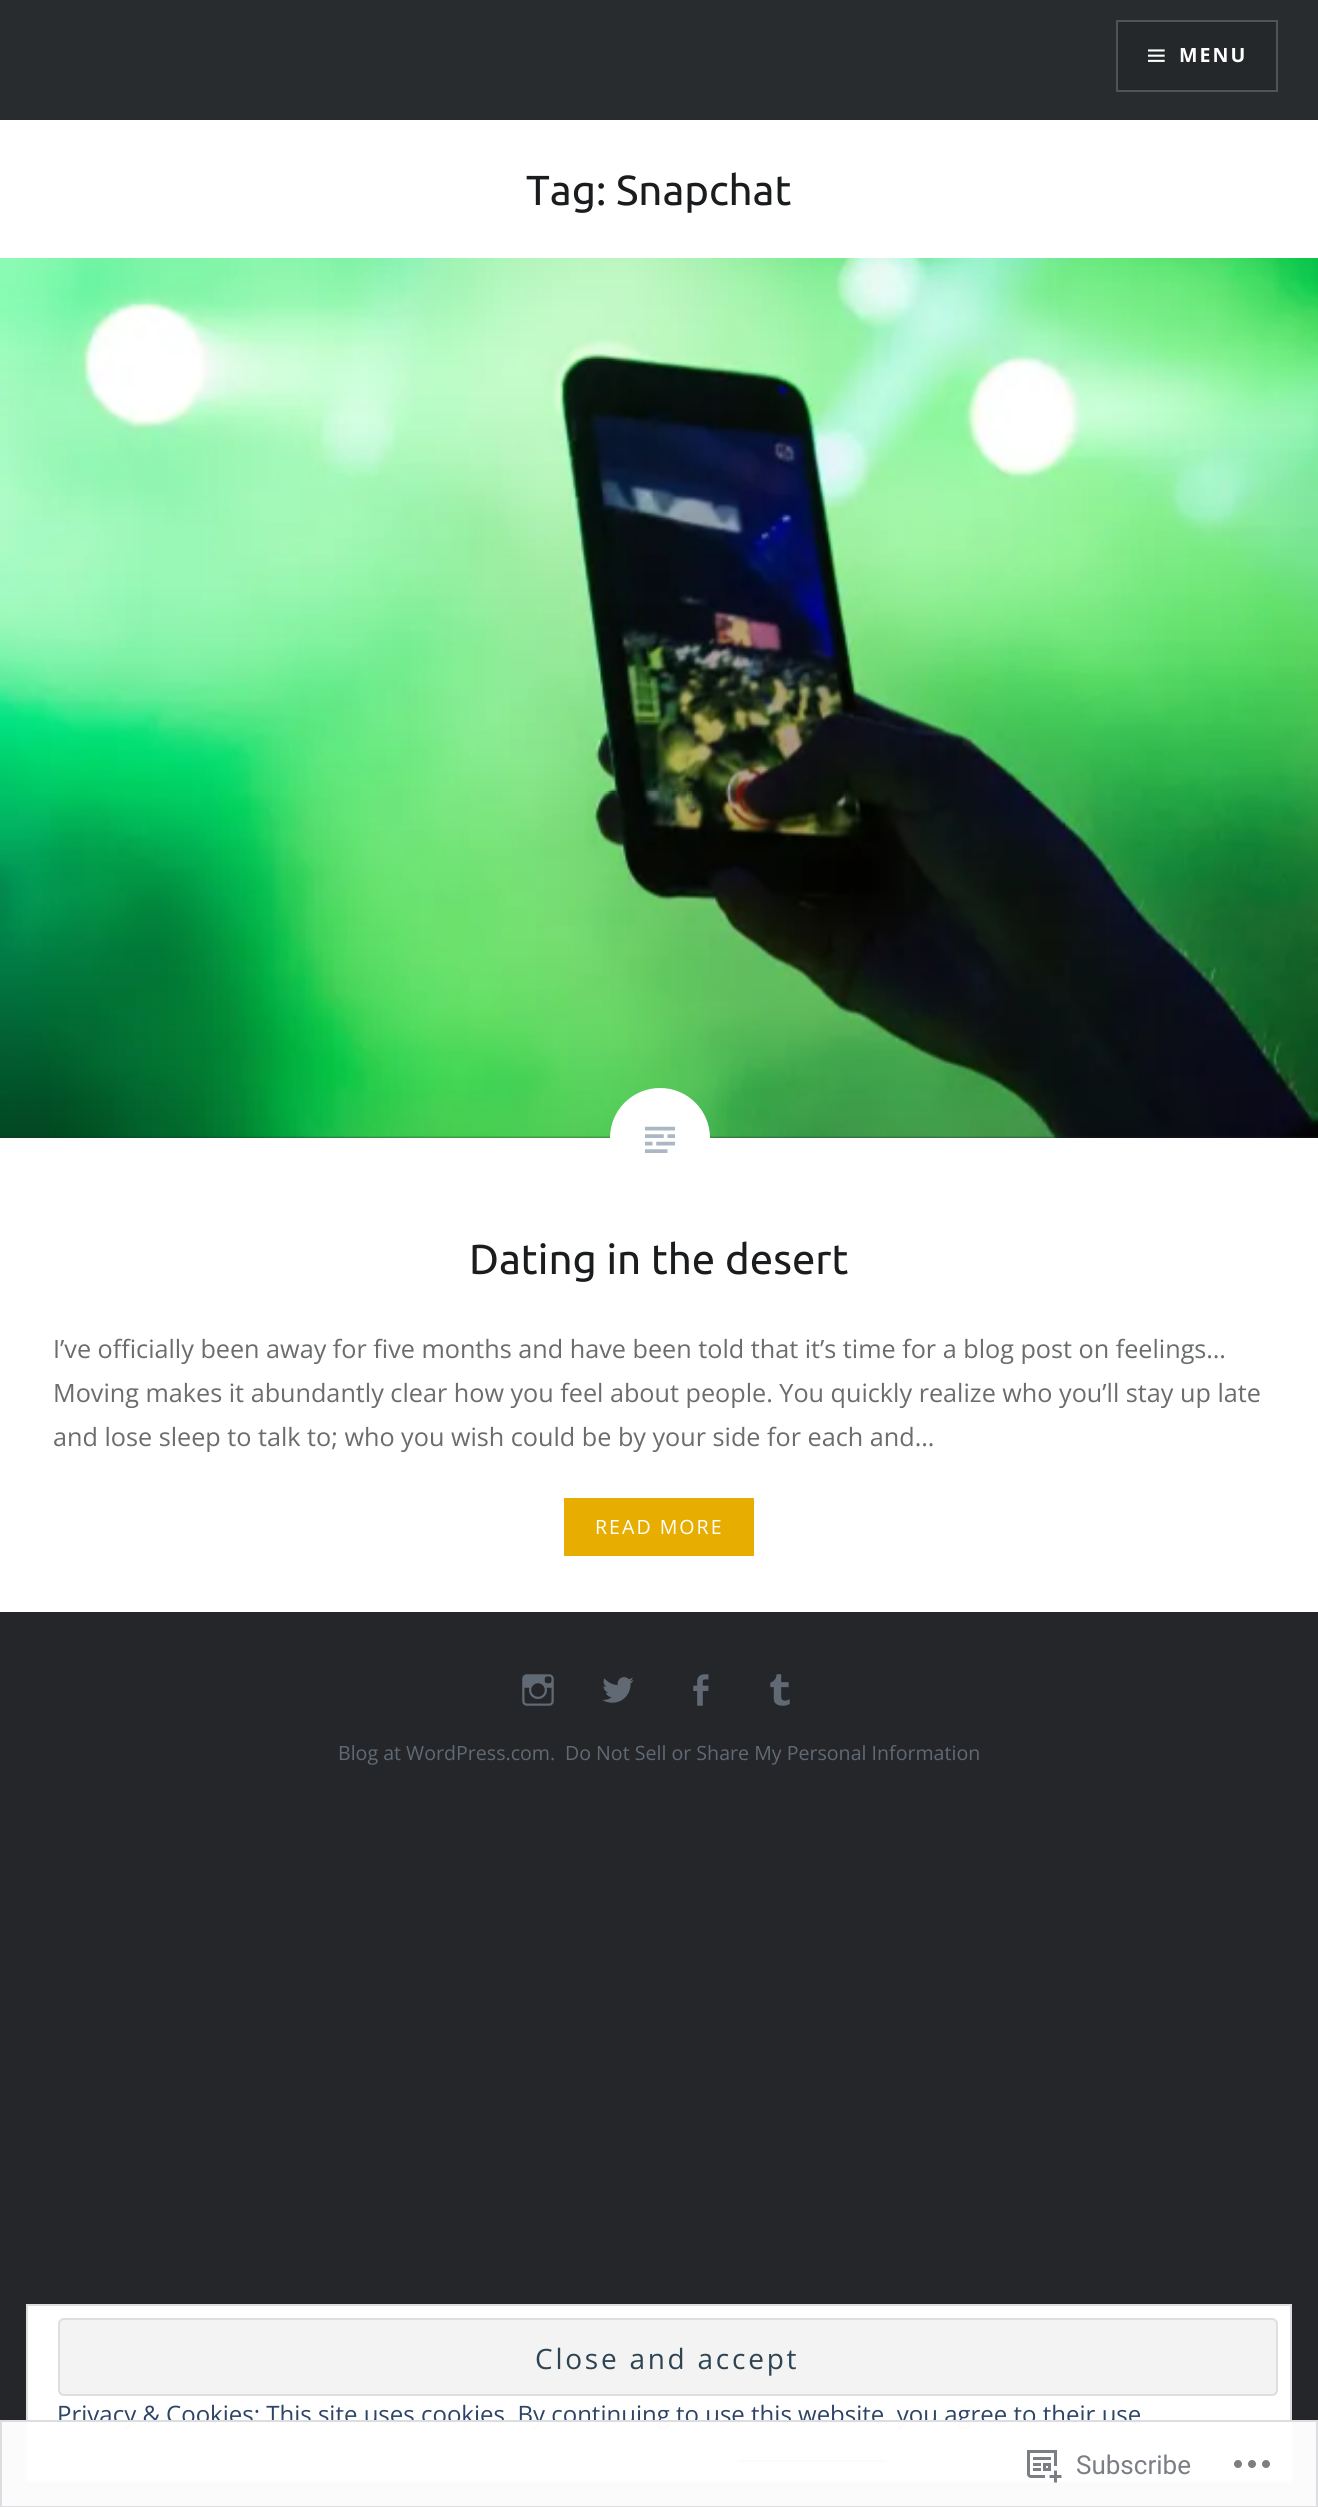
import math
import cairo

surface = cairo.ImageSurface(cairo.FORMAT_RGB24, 1318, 2507)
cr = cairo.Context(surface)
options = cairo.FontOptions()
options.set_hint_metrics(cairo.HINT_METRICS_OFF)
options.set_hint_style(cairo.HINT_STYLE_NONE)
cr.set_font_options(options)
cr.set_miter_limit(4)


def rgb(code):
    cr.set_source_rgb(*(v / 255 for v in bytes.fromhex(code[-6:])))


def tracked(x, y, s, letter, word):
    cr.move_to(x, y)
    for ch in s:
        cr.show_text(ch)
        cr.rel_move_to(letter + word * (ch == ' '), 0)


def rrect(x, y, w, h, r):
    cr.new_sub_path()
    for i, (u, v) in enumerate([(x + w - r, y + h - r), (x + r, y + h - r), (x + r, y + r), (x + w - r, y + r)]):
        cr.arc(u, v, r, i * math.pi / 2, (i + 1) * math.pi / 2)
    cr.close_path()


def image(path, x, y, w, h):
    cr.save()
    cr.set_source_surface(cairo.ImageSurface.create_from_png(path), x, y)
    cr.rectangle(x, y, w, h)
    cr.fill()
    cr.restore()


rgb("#242629")
cr.paint()
rgb("#ffffff")
cr.rectangle(0, 120, 1318, 1492)
cr.fill()
rgb("#292c2f")
cr.rectangle(0, 0, 1318, 120)
cr.fill()
rgb("#25282a")
cr.rectangle(1117, 21, 160, 70)
cr.fill_preserve()
rgb("#515355")
cr.stroke()
image("img/1.png", 1148, 49, 17, 13)
rgb("#242629")
cr.rectangle(0, 1136, 1318, 2)
cr.fill()
image("img/2.png", 0, 258, 1318, 880)
rgb("#ffffff")
cr.arc(660, 1138, 50, 0, 2 * math.pi)
cr.fill()
image("img/3.png", 645, 1126, 30, 27)
rgb("#e7ae01")
cr.rectangle(564, 1498, 190, 58)
cr.fill()
image("img/4.png", 522, 1674, 32, 32)
image("img/5.png", 602, 1677, 32, 26)
image("img/6.png", 693, 1674, 16, 32)
image("img/7.png", 770, 1674, 20, 32)
rgb("#ffffff")
cr.rectangle(27, 2305, 1264, 176)
cr.fill_preserve()
rgb("#dedede")
cr.stroke()
rgb("#f3f3f3")
rrect(59, 2319, 1218, 76, 5)
cr.fill_preserve()
rgb("#dedede")
cr.stroke()
rgb("#2e4467")
cr.rectangle(738, 2460, 148, 2)
cr.fill()
cr.select_font_face("Open Sans", cairo.FONT_SLANT_NORMAL, cairo.FONT_WEIGHT_BOLD)
cr.set_font_size(19.6)
rgb("#ffffff")
tracked(1179, 62, "MENU", 2, 0)
cr.select_font_face("Ubuntu")
cr.set_font_size(42)
rgb("#1a1c1e")
cr.move_to(526, 205)
cr.show_text("Tag: Snapchat")
cr.move_to(469, 1274)
cr.show_text("Dating in the desert")
cr.select_font_face("Open Sans")
cr.set_font_size(25.2)
rgb("#6a6c6e")
for x, y, s in [
    (53, 1358, "I’ve officially been away for five months and have been told that it’s time for a blog post on feelings…"),
    (53, 1402, "Moving makes it abundantly clear how you feel about people. You quickly realize who you’ll stay up late"),
    (53, 1446, "and lose sleep to talk to; who you wish could be by your side for each and…"),
]:
    cr.move_to(x, y)
    cr.show_text(s)
cr.set_font_size(19.6)
rgb("#ffffff")
tracked(595, 1534, "READ MORE", 2, 0)
rgb("#616a74")
cr.move_to(338, 1760)
cr.show_text("Blog at WordPress.com.")
cr.move_to(565, 1760)
cr.show_text("Do Not Sell or Share My Personal Information")
cr.set_font_size(28)
rgb("#2e4453")
tracked(535, 2369, "Close and accept", 2.75, 0)
cr.set_font_size(24)
rgb("#2e4467")
cr.move_to(57, 2423)
cr.show_text("Privacy & Cookies: This site uses cookies. By continuing to use this website, you agree to their use")
cr.set_source_rgba(1, 1, 1, 0.98)
cr.rectangle(0, 2420, 1318, 87)
cr.fill()
cr.rectangle(1, 2421, 1316, 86)
cr.set_source_rgba(0.863, 0.863, 0.871, 0.98)
cr.stroke()
image("img/8.png", 1027, 2450, 35, 33)
cr.select_font_face("Roboto")
cr.set_font_size(26)
rgb("#7b7f85")
cr.move_to(1076, 2474)
cr.show_text("Subscribe")
image("img/9.png", 1234, 2460, 36, 8)
surface.write_to_png("page.png")
